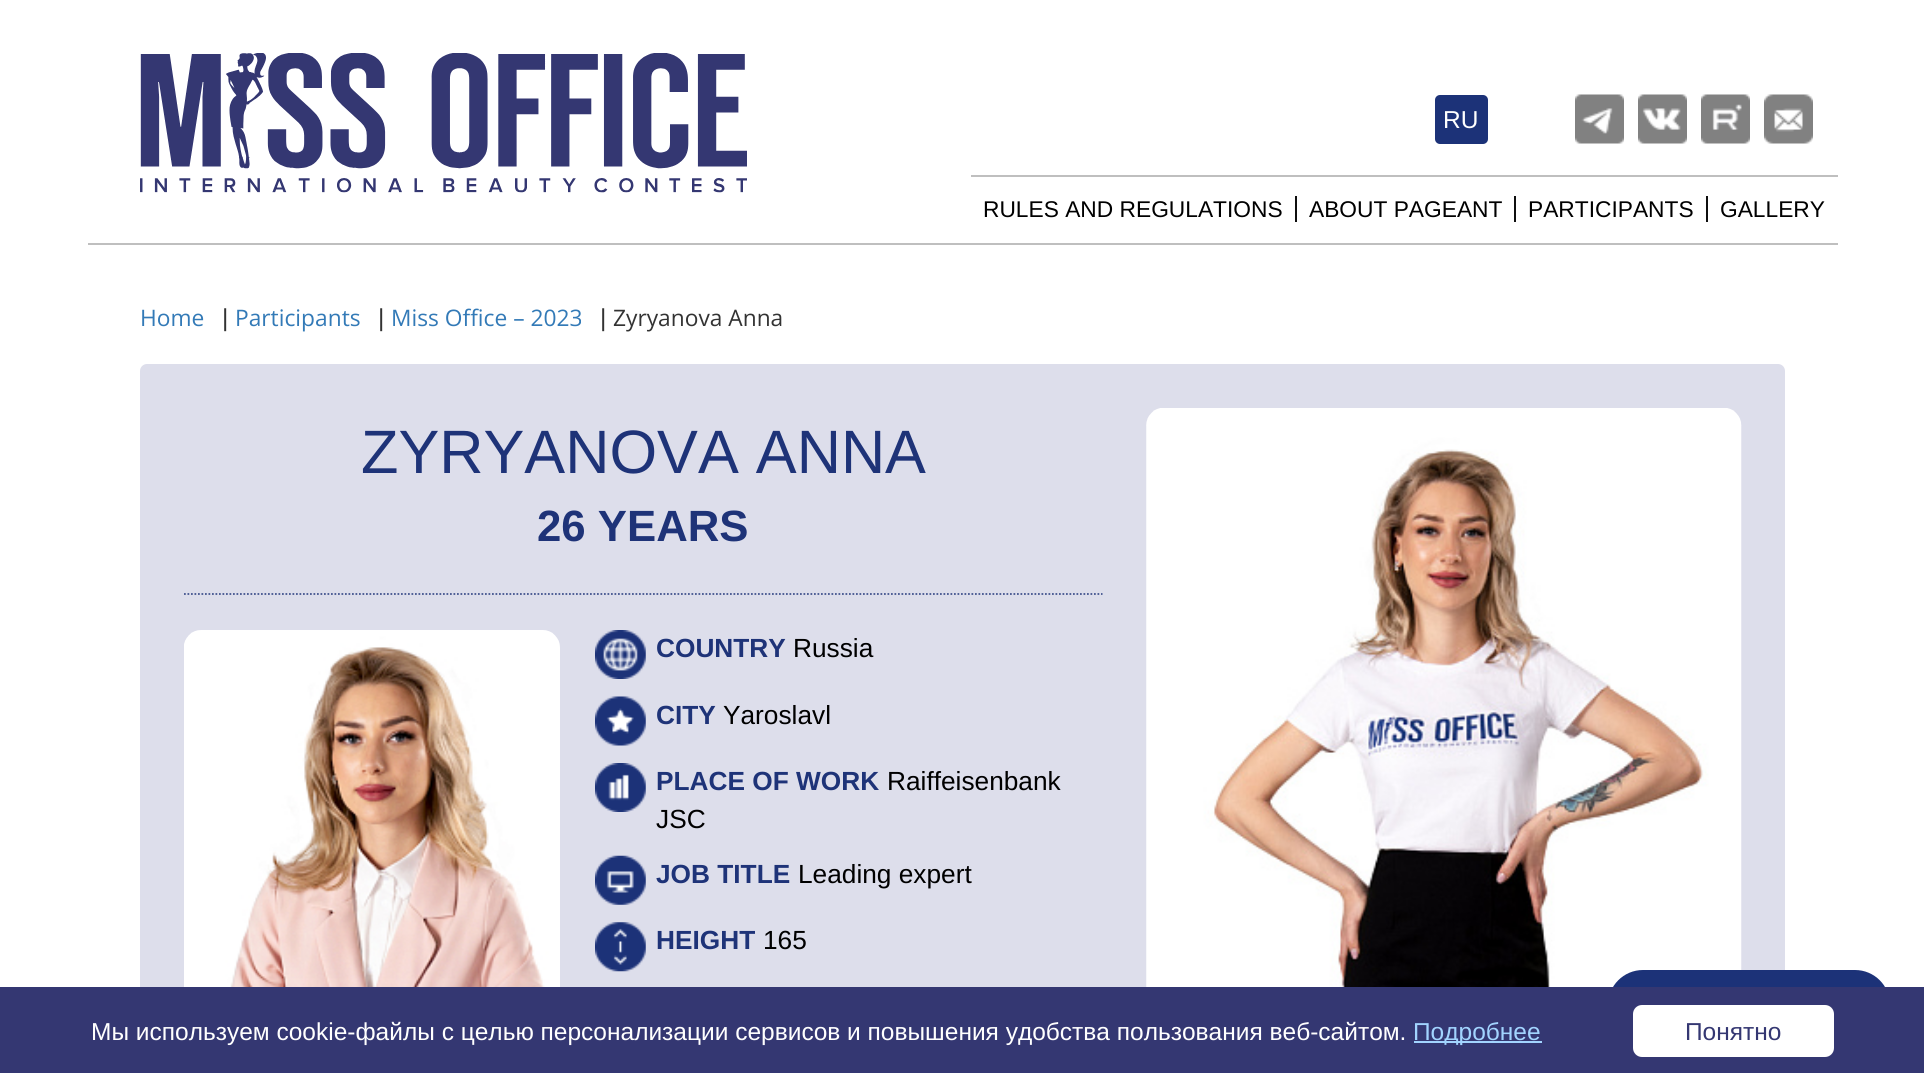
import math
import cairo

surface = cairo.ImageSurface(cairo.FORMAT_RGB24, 1924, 1073)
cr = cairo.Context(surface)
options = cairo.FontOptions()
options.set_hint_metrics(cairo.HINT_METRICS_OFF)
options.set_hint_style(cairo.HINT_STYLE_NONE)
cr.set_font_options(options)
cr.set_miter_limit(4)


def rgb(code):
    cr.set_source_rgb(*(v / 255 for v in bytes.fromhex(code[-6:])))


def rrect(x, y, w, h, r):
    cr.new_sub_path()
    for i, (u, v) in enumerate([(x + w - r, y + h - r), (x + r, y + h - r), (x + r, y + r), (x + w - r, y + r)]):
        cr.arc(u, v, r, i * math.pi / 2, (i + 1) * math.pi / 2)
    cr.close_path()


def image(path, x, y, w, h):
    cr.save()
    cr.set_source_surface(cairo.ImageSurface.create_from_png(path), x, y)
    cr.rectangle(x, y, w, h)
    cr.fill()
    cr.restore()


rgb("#ffffff")
cr.paint()
rgb("#bfbfbf")
cr.rectangle(88, 243, 1750, 2)
cr.fill()
image("img/1.png", 140, 53, 607, 140)
rgb("#1c3278")
rrect(1435, 95, 53, 49, 5)
cr.fill()
image("img/2.png", 1575, 94, 49, 50)
image("img/3.png", 1638, 94, 49, 50)
image("img/4.png", 1701, 94, 49, 50)
image("img/5.png", 1764, 94, 49, 50)
for x, y, w, h, color in [
    (971, 175, 867, 2, "#bfbfbf"),
    (1295, 196, 2, 26, "#0f0f0f"),
    (1514, 196, 2, 26, "#0f0f0f"),
    (1706, 196, 2, 26, "#0f0f0f"),
]:
    rgb(color)
    cr.rectangle(x, y, w, h)
    cr.fill()
rgb("#dddeeb")
rrect(140, 364, 1645, 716, 7)
cr.fill()
cr.new_path()
cr.move_to(184, 594)
cr.line_to(1102.5, 594)
rgb("#41538e")
cr.set_line_width(1.8)
cr.set_dash([1.75, 1.75])
cr.stroke()
image("img/6.png", 184, 630, 376, 357)
image("img/7.png", 595, 630, 51, 49)
image("img/8.png", 595, 696, 51, 50)
image("img/9.png", 595, 763, 51, 49)
image("img/10.png", 595, 855, 51, 50)
image("img/11.png", 595, 922, 51, 50)
image("img/12.png", 1146, 408, 596, 579)
rgb("#1c3278")
rrect(1608, 970, 282, 70, 35)
cr.fill()
rgb("#343772")
cr.rectangle(0, 987, 1924, 86)
cr.fill()
rgb("#a2d4ff")
cr.rectangle(1414, 1041, 128, 2)
cr.fill()
rgb("#ffffff")
rrect(1633, 1005, 201, 52, 9)
cr.fill()
cr.select_font_face("Liberation Sans")
cr.set_font_size(24.5)
cr.move_to(1443, 128)
cr.show_text("RU")
cr.set_font_size(22.75)
rgb("#000000")
for x, y, s in [
    (983, 217, "RULES AND REGULATIONS"),
    (1309, 217, "ABOUT PAGEANT"),
    (1528, 217, "PARTICIPANTS"),
    (1720, 217, "GALLERY"),
]:
    cr.move_to(x, y)
    cr.show_text(s)
cr.select_font_face("Open Sans")
rgb("#337ab7")
cr.move_to(140, 326)
cr.show_text("Home")
cr.select_font_face("Liberation Sans")
cr.set_font_size(24.5)
rgb("#333333")
cr.move_to(222, 326)
cr.show_text("|")
cr.select_font_face("Open Sans")
cr.set_font_size(22.75)
rgb("#337ab7")
cr.move_to(235, 326)
cr.show_text("Participants")
cr.select_font_face("Liberation Sans")
cr.set_font_size(24.5)
rgb("#333333")
cr.move_to(378, 326)
cr.show_text("|")
cr.select_font_face("Open Sans")
cr.set_font_size(22.75)
rgb("#337ab7")
cr.move_to(391, 326)
cr.show_text("Miss Office – 2023")
cr.select_font_face("Liberation Sans")
cr.set_font_size(24.5)
rgb("#333333")
cr.move_to(600, 326)
cr.show_text("|")
cr.select_font_face("Open Sans")
cr.set_font_size(22.75)
cr.move_to(613, 326)
cr.show_text("Zyryanova Anna")
cr.select_font_face("Liberation Sans")
cr.set_font_size(61.25)
rgb("#1e3378")
cr.move_to(361, 473)
cr.show_text("ZYRYANOVA ANNA")
cr.select_font_face("Liberation Sans", cairo.FONT_SLANT_NORMAL, cairo.FONT_WEIGHT_BOLD)
cr.set_font_size(43.75)
cr.move_to(537, 541)
cr.show_text("26 YEARS")
cr.set_font_size(26.25)
cr.move_to(656, 657)
cr.show_text("COUNTRY")
cr.select_font_face("Liberation Sans")
rgb("#000000")
cr.move_to(793, 657)
cr.show_text("Russia")
cr.select_font_face("Liberation Sans", cairo.FONT_SLANT_NORMAL, cairo.FONT_WEIGHT_BOLD)
rgb("#1e3378")
cr.move_to(656, 724)
cr.show_text("CITY")
cr.select_font_face("Liberation Sans")
rgb("#000000")
cr.move_to(723, 724)
cr.show_text("Yaroslavl")
cr.select_font_face("Liberation Sans", cairo.FONT_SLANT_NORMAL, cairo.FONT_WEIGHT_BOLD)
rgb("#1e3378")
cr.move_to(656, 790)
cr.show_text("PLACE OF WORK")
cr.select_font_face("Liberation Sans")
rgb("#000000")
cr.move_to(887, 790)
cr.show_text("Raiffeisenbank")
cr.move_to(656, 828)
cr.show_text("JSC")
cr.select_font_face("Liberation Sans", cairo.FONT_SLANT_NORMAL, cairo.FONT_WEIGHT_BOLD)
rgb("#1e3378")
cr.move_to(656, 883)
cr.show_text("JOB TITLE")
cr.select_font_face("Liberation Sans")
rgb("#000000")
cr.move_to(798, 883)
cr.show_text("Leading expert")
cr.select_font_face("Liberation Sans", cairo.FONT_SLANT_NORMAL, cairo.FONT_WEIGHT_BOLD)
rgb("#1e3378")
cr.move_to(656, 949)
cr.show_text("HEIGHT")
cr.select_font_face("Liberation Sans")
rgb("#000000")
cr.move_to(763, 949)
cr.show_text("165")
cr.set_font_size(24.5)
rgb("#ffffff")
cr.move_to(91, 1040)
cr.show_text("Мы используем cookie-файлы с целью персонализации сервисов и повышения удобства пользования веб-сайтом.")
rgb("#a2d4ff")
cr.move_to(1413, 1040)
cr.show_text("Подробнее")
rgb("#343772")
cr.move_to(1685, 1040)
cr.show_text("Понятно")
surface.write_to_png("page.png")
